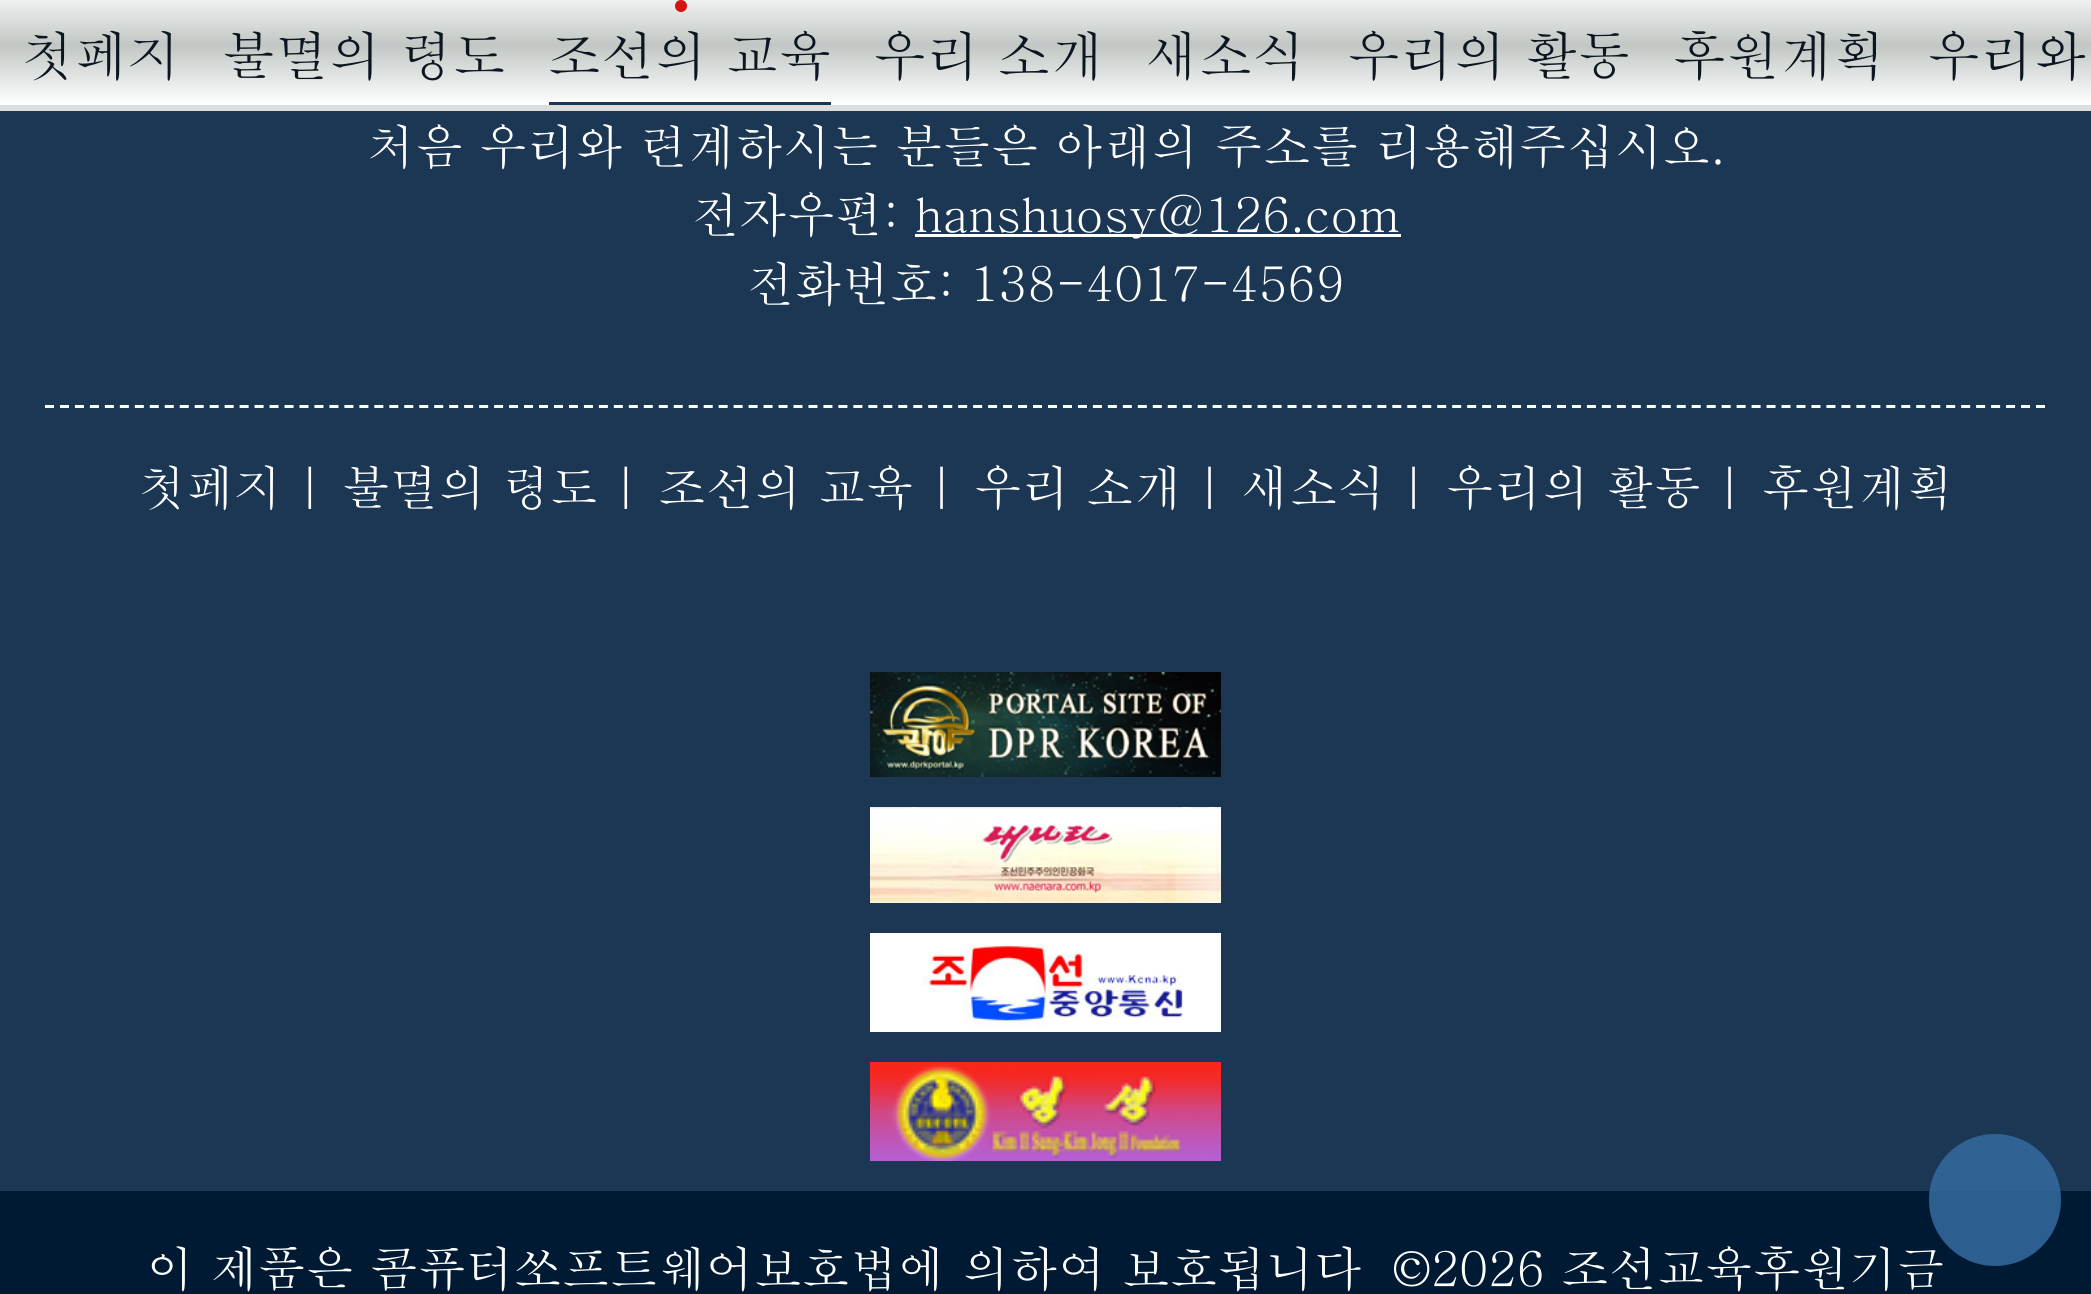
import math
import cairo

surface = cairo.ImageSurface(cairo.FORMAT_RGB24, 2091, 1294)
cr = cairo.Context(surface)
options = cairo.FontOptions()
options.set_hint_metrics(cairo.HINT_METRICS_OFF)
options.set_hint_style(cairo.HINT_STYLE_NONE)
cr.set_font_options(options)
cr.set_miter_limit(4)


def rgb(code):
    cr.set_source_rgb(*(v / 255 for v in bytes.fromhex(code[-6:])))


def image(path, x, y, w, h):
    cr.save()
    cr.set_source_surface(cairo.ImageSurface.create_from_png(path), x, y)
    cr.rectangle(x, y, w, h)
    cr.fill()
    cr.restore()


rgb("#011a33")
cr.paint()
gradient = cairo.LinearGradient(1046, -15, 1046, 105)
gradient.add_color_stop_rgba(0, 1, 1, 1, 1)
gradient.add_color_stop_rgba(0.5, 0.757, 0.78, 0.769, 1)
gradient.add_color_stop_rgba(1, 1, 1, 1, 1)
cr.set_source(gradient)
cr.rectangle(0, 0, 2091, 105)
cr.fill()
rgb("#dddddd")
cr.rectangle(0, 105, 2091, 6)
cr.fill()
rgb("#1b3753")
cr.rectangle(549, 102, 282, 3)
cr.fill()
rgb("#d6130f")
cr.arc(681, 6, 6, 0, 2 * math.pi)
cr.fill()
rgb("#1b3753")
cr.rectangle(0, 111, 2091, 1080)
cr.fill()
rgb("#ffffff")
cr.rectangle(915, 234, 486, 3)
cr.fill()
cr.new_path()
cr.move_to(45, 406.5)
cr.line_to(2046, 406.5)
cr.set_line_width(3)
cr.set_dash([9, 5.97])
cr.stroke()
image("img/1.png", 870, 672, 351, 105)
image("img/2.png", 870, 807, 351, 96)
image("img/3.png", 870, 933, 351, 99)
image("img/4.png", 870, 1062, 351, 99)
cr.select_font_face("Batang")
cr.set_font_size(53.25)
rgb("#0c1621")
for x, y, s in [
    (21, 75, "첫페지"),
    (222, 75, "불멸의 령도"),
    (548, 75, "조선의 교육"),
    (873, 75, "우리 소개"),
    (1146, 75, "새소식"),
    (1347, 75, "우리의 활동"),
    (1673, 75, "후원계획"),
    (1927, 75, "우리와"),
]:
    cr.move_to(x, y)
    cr.show_text(s)
cr.set_font_size(48)
rgb("#ffffff")
for x, y, s in [
    (367, 164, "처음 우리와 련계하시는 분들은 아래의 주소를 리용해주십시오."),
    (691, 232, "전자우편:"),
    (915, 232, "hanshuosy@126.com"),
    (746, 301, "전화번호: 138-4017-4569"),
    (138, 505, "첫페지 | 불멸의 령도 | 조선의 교육 | 우리 소개 | 새소식 | 우리의 활동 | 후원계획"),
    (146, 1286, "이 제품은 콤퓨터쏘프트웨어보호법에 의하여 보호됩니다"),
    (1393, 1286, "©2026 조선교육후원기금"),
]:
    cr.move_to(x, y)
    cr.show_text(s)
cr.set_source_rgba(0.208, 0.416, 0.627, 0.85)
cr.new_path()
cr.arc(1995, 1200, 66, 0, 2 * math.pi)
cr.fill()
surface.write_to_png("page.png")
